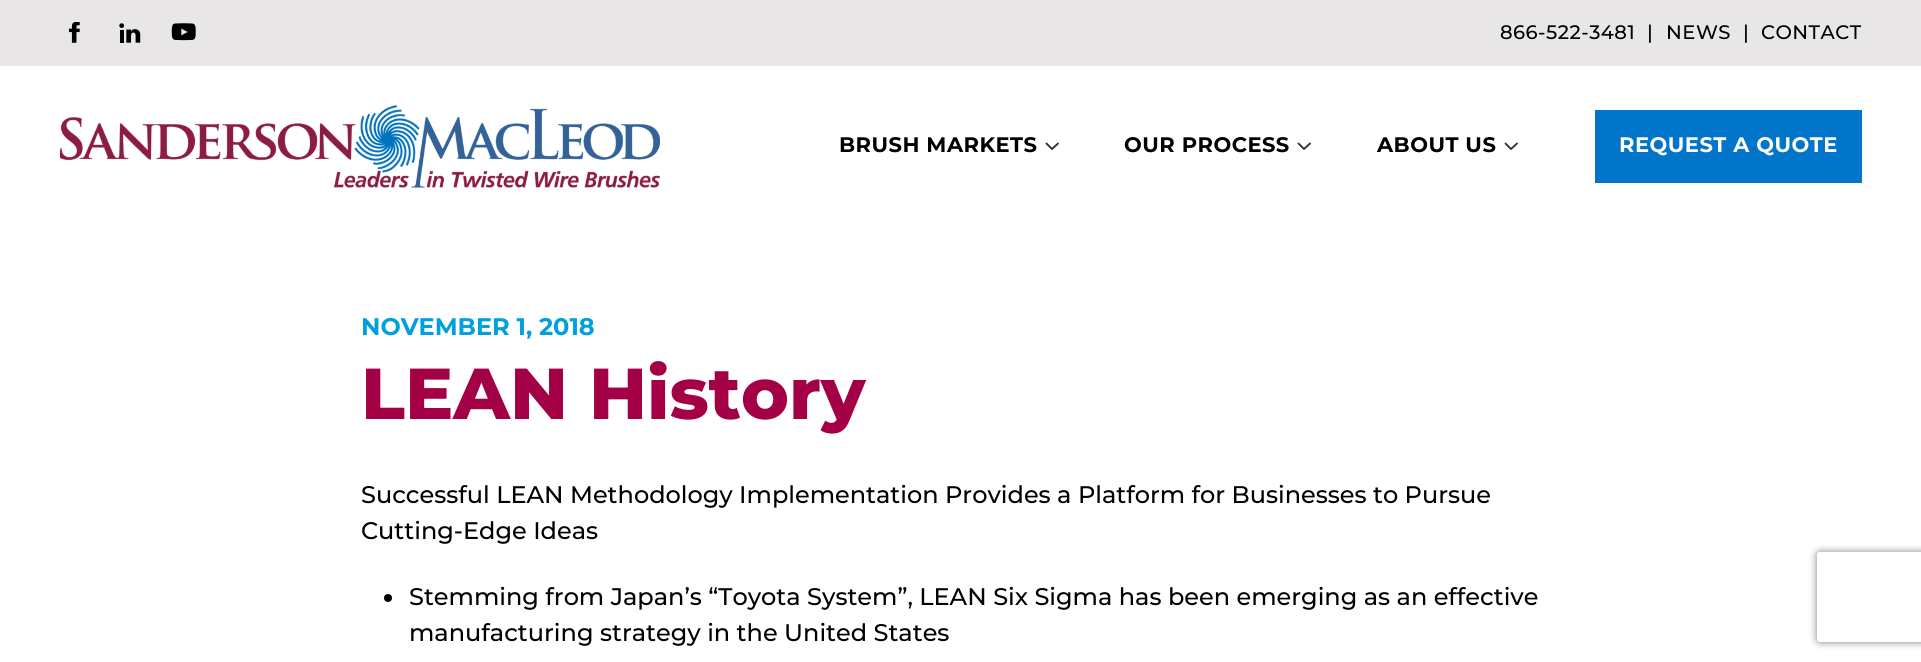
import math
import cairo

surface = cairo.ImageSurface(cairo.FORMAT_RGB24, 1921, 662)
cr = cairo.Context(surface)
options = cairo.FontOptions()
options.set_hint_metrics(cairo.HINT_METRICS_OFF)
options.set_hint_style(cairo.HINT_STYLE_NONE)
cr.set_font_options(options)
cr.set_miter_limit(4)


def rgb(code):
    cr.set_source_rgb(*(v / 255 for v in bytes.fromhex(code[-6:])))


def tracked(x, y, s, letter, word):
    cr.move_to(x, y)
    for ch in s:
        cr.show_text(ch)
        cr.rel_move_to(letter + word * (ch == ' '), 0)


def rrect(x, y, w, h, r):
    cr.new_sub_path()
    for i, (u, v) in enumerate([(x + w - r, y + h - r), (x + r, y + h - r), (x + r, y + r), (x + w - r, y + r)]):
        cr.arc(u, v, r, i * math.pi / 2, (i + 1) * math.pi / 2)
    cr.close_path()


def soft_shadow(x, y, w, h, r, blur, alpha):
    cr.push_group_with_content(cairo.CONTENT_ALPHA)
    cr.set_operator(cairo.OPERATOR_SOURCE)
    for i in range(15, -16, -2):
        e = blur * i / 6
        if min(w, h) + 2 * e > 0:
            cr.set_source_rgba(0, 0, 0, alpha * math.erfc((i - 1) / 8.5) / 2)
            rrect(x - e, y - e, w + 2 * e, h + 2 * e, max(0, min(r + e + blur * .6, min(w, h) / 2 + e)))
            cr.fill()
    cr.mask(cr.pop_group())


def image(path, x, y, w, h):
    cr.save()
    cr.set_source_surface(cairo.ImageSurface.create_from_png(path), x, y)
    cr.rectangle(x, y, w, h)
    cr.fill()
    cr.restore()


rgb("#ffffff")
cr.paint()
rgb("#e8e6e6")
cr.rectangle(0, 0, 1921, 66)
cr.fill()
image("img/1.png", 69, 22, 11, 21)
image("img/2.png", 119, 23, 22, 20)
image("img/3.png", 171, 23, 25, 18)
image("img/4.png", 60, 105, 600, 83)
cr.new_path()
cr.move_to(1046.5, 143.5)
cr.line_to(1052, 149)
cr.line_to(1058, 143.5)
rgb("#333333")
cr.set_line_width(1.9)
cr.set_line_cap(cairo.LINE_CAP_ROUND)
cr.set_line_join(cairo.LINE_JOIN_ROUND)
cr.stroke()
cr.new_path()
cr.move_to(1298.5, 143.5)
cr.line_to(1304, 149)
cr.line_to(1310, 143.5)
cr.stroke()
cr.new_path()
cr.move_to(1505.5, 143.5)
cr.line_to(1511, 149)
cr.line_to(1517, 143.5)
cr.stroke()
rgb("#0075c9")
cr.rectangle(1595, 110, 267, 73)
cr.fill()
rgb("#000000")
cr.arc(388, 598, 4, 0, 2 * math.pi)
cr.fill()
cr.save()
cr.set_fill_rule(cairo.FILL_RULE_EVEN_ODD)
cr.new_path()
cr.move_to(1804, 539)
cr.line_to(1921, 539)
cr.line_to(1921, 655)
cr.line_to(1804, 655)
cr.close_path()
cr.move_to(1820, 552)
cr.line_to(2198, 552)
cr.curve_to(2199.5, 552, 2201, 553.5, 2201, 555)
cr.line_to(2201, 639)
cr.curve_to(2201, 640.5, 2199.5, 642, 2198, 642)
cr.line_to(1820, 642)
cr.curve_to(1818.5, 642, 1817, 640.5, 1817, 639)
cr.line_to(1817, 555)
cr.curve_to(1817, 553.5, 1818.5, 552, 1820, 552)
cr.close_path()
cr.clip()
rgb("#808080")
soft_shadow(1817, 552, 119, 90, 3, 4, 1)
cr.restore()
cr.select_font_face("Montserrat Medium")
cr.set_font_size(19.5)
for x, y, s in [
    (1500, 39, "866-522-3481"),
    (1647, 39, "|"),
    (1666, 39, "NEWS"),
    (1743, 39, "|"),
    (1761, 39, "CONTACT"),
]:
    tracked(x, y, s, 0.5, 0)
cr.select_font_face("Montserrat", cairo.FONT_SLANT_NORMAL, cairo.FONT_WEIGHT_BOLD)
cr.set_font_size(21)
for x, y, s in [
    (839, 152, "BRUSH MARKETS"),
    (1124, 152, "OUR PROCESS"),
    (1377, 152, "ABOUT US"),
]:
    tracked(x, y, s, 0.5, 0)
rgb("#ffffff")
tracked(1619, 152, "REQUEST A QUOTE", 0.5, 0)
cr.set_font_size(24)
rgb("#00a0df")
cr.move_to(361, 335)
cr.show_text("NOVEMBER 1, 2018")
cr.select_font_face("Montserrat ExtraBold")
cr.set_font_size(72)
rgb("#a40046")
cr.move_to(361, 419)
cr.show_text("LEAN History")
cr.select_font_face("Montserrat Medium")
cr.set_font_size(24)
rgb("#000000")
for x, y, s in [
    (361, 503, "Successful LEAN Methodology Implementation Provides a Platform for Businesses to Pursue"),
    (361, 539, "Cutting-Edge Ideas"),
    (409, 605, "Stemming from Japan’s “Toyota System”, LEAN Six Sigma has been emerging as an effective"),
    (409, 641, "manufacturing strategy in the United States"),
]:
    cr.move_to(x, y)
    cr.show_text(s)
surface.write_to_png("page.png")
